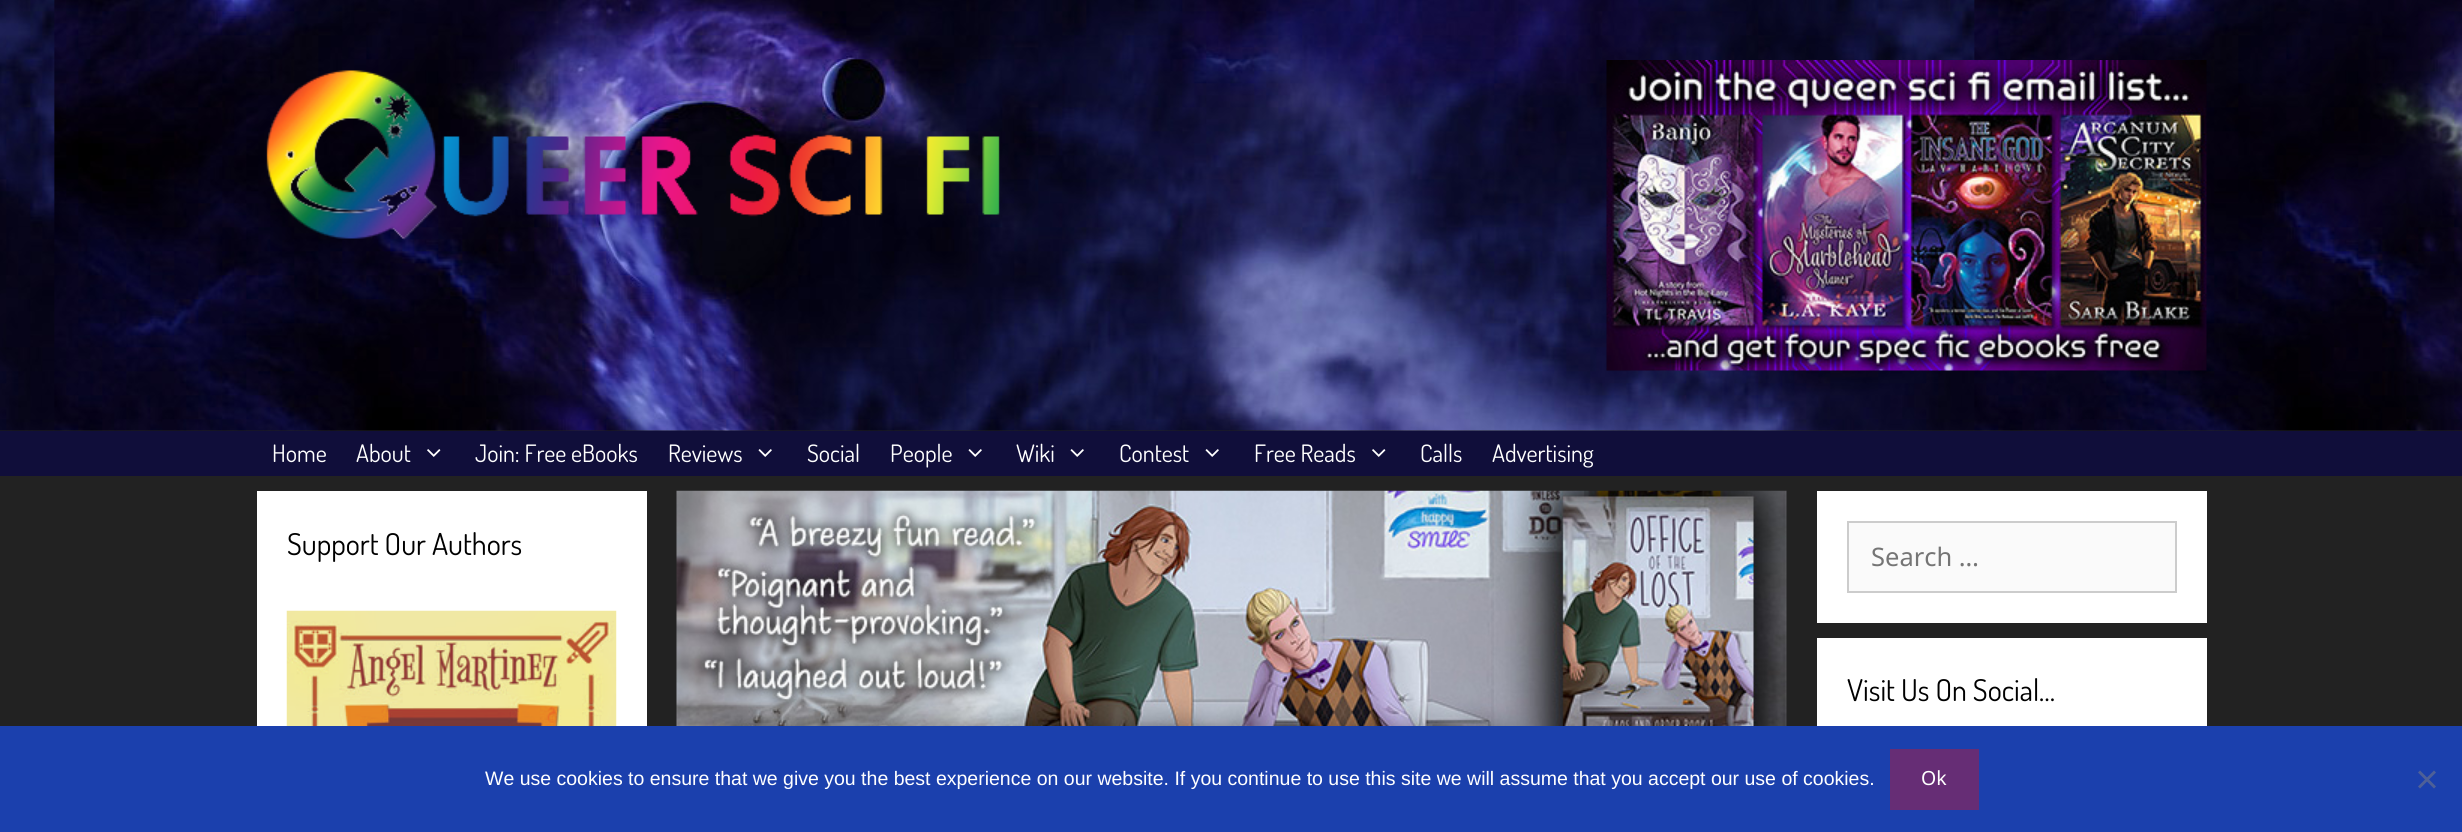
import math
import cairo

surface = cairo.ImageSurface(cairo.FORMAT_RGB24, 2462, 832)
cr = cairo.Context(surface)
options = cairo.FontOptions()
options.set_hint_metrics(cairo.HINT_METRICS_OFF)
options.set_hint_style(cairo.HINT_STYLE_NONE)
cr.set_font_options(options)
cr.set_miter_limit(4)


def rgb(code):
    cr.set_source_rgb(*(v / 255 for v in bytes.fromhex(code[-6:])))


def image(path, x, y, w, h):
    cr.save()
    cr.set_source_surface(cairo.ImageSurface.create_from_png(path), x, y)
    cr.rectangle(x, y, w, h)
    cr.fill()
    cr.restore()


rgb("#222222")
cr.paint()
image("img/1.png", 0, 0, 2462, 431)
image("img/2.png", 266, 70, 734, 170)
image("img/3.png", 1606, 60, 601, 311)
rgb("#100e3a")
cr.rectangle(0, 431, 2462, 45)
cr.fill()
image("img/4.png", 427, 449, 14, 8)
image("img/5.png", 758, 449, 14, 8)
image("img/5.png", 968, 449, 14, 8)
image("img/5.png", 1070, 449, 14, 8)
image("img/5.png", 1205, 449, 14, 8)
image("img/4.png", 1372, 449, 14, 8)
rgb("#ffffff")
cr.rectangle(257, 491, 390, 235)
cr.fill()
image("img/6.png", 286, 610, 331, 116)
image("img/7.png", 676, 490, 1111, 236)
cr.rectangle(1817, 491, 390, 132)
cr.fill()
rgb("#fafafa")
cr.rectangle(1848, 522, 328, 70)
cr.fill_preserve()
rgb("#cccccc")
cr.stroke()
for x, y, w, h, color in [
    (1817, 638, 390, 88, "#ffffff"),
    (0, 726, 2462, 106, "#1b40ad"),
    (1890, 749, 89, 61, "#662d75"),
]:
    rgb(color)
    cr.rectangle(x, y, w, h)
    cr.fill()
rgb("#4e6097")
cr.new_path()
cr.move_to(2434, 770.5)
cr.line_to(2436, 772.5)
cr.line_to(2420, 788.5)
cr.line_to(2418, 786.5)
cr.close_path()
cr.fill()
cr.new_path()
cr.move_to(2418, 772.5)
cr.line_to(2420, 770.5)
cr.line_to(2436, 786.5)
cr.line_to(2434, 788.5)
cr.close_path()
cr.fill()
cr.select_font_face("Dosis")
cr.set_font_size(24)
rgb("#ffffff")
for x, y, s in [
    (272, 462, "Home"),
    (356, 462, "About"),
    (475, 462, "Join: Free eBooks"),
    (668, 462, "Reviews"),
    (807, 462, "Social"),
    (890, 462, "People"),
    (1016, 462, "Wiki"),
    (1119, 462, "Contest"),
    (1254, 462, "Free Reads"),
    (1420, 462, "Calls"),
    (1492, 462, "Advertising"),
]:
    cr.move_to(x, y)
    cr.show_text(s)
cr.set_font_size(30)
rgb("#000000")
cr.move_to(287, 555)
cr.show_text("Support Our Authors")
cr.select_font_face("Noto Sans")
cr.set_font_size(25.5)
rgb("#757575")
cr.move_to(1871, 566)
cr.show_text("Search …")
cr.select_font_face("Dosis")
cr.set_font_size(30)
rgb("#000000")
cr.move_to(1847, 701)
cr.show_text("Visit Us On Social…")
cr.select_font_face("Liberation Sans")
cr.set_font_size(19.5)
rgb("#ffffff")
cr.move_to(485, 785)
cr.show_text("We use cookies to ensure that we give you the best experience on our website. If you continue to use this site we will assume that you accept our use of cookies.")
cr.select_font_face("Noto Sans")
cr.move_to(1921, 785)
cr.show_text("Ok")
surface.write_to_png("page.png")
